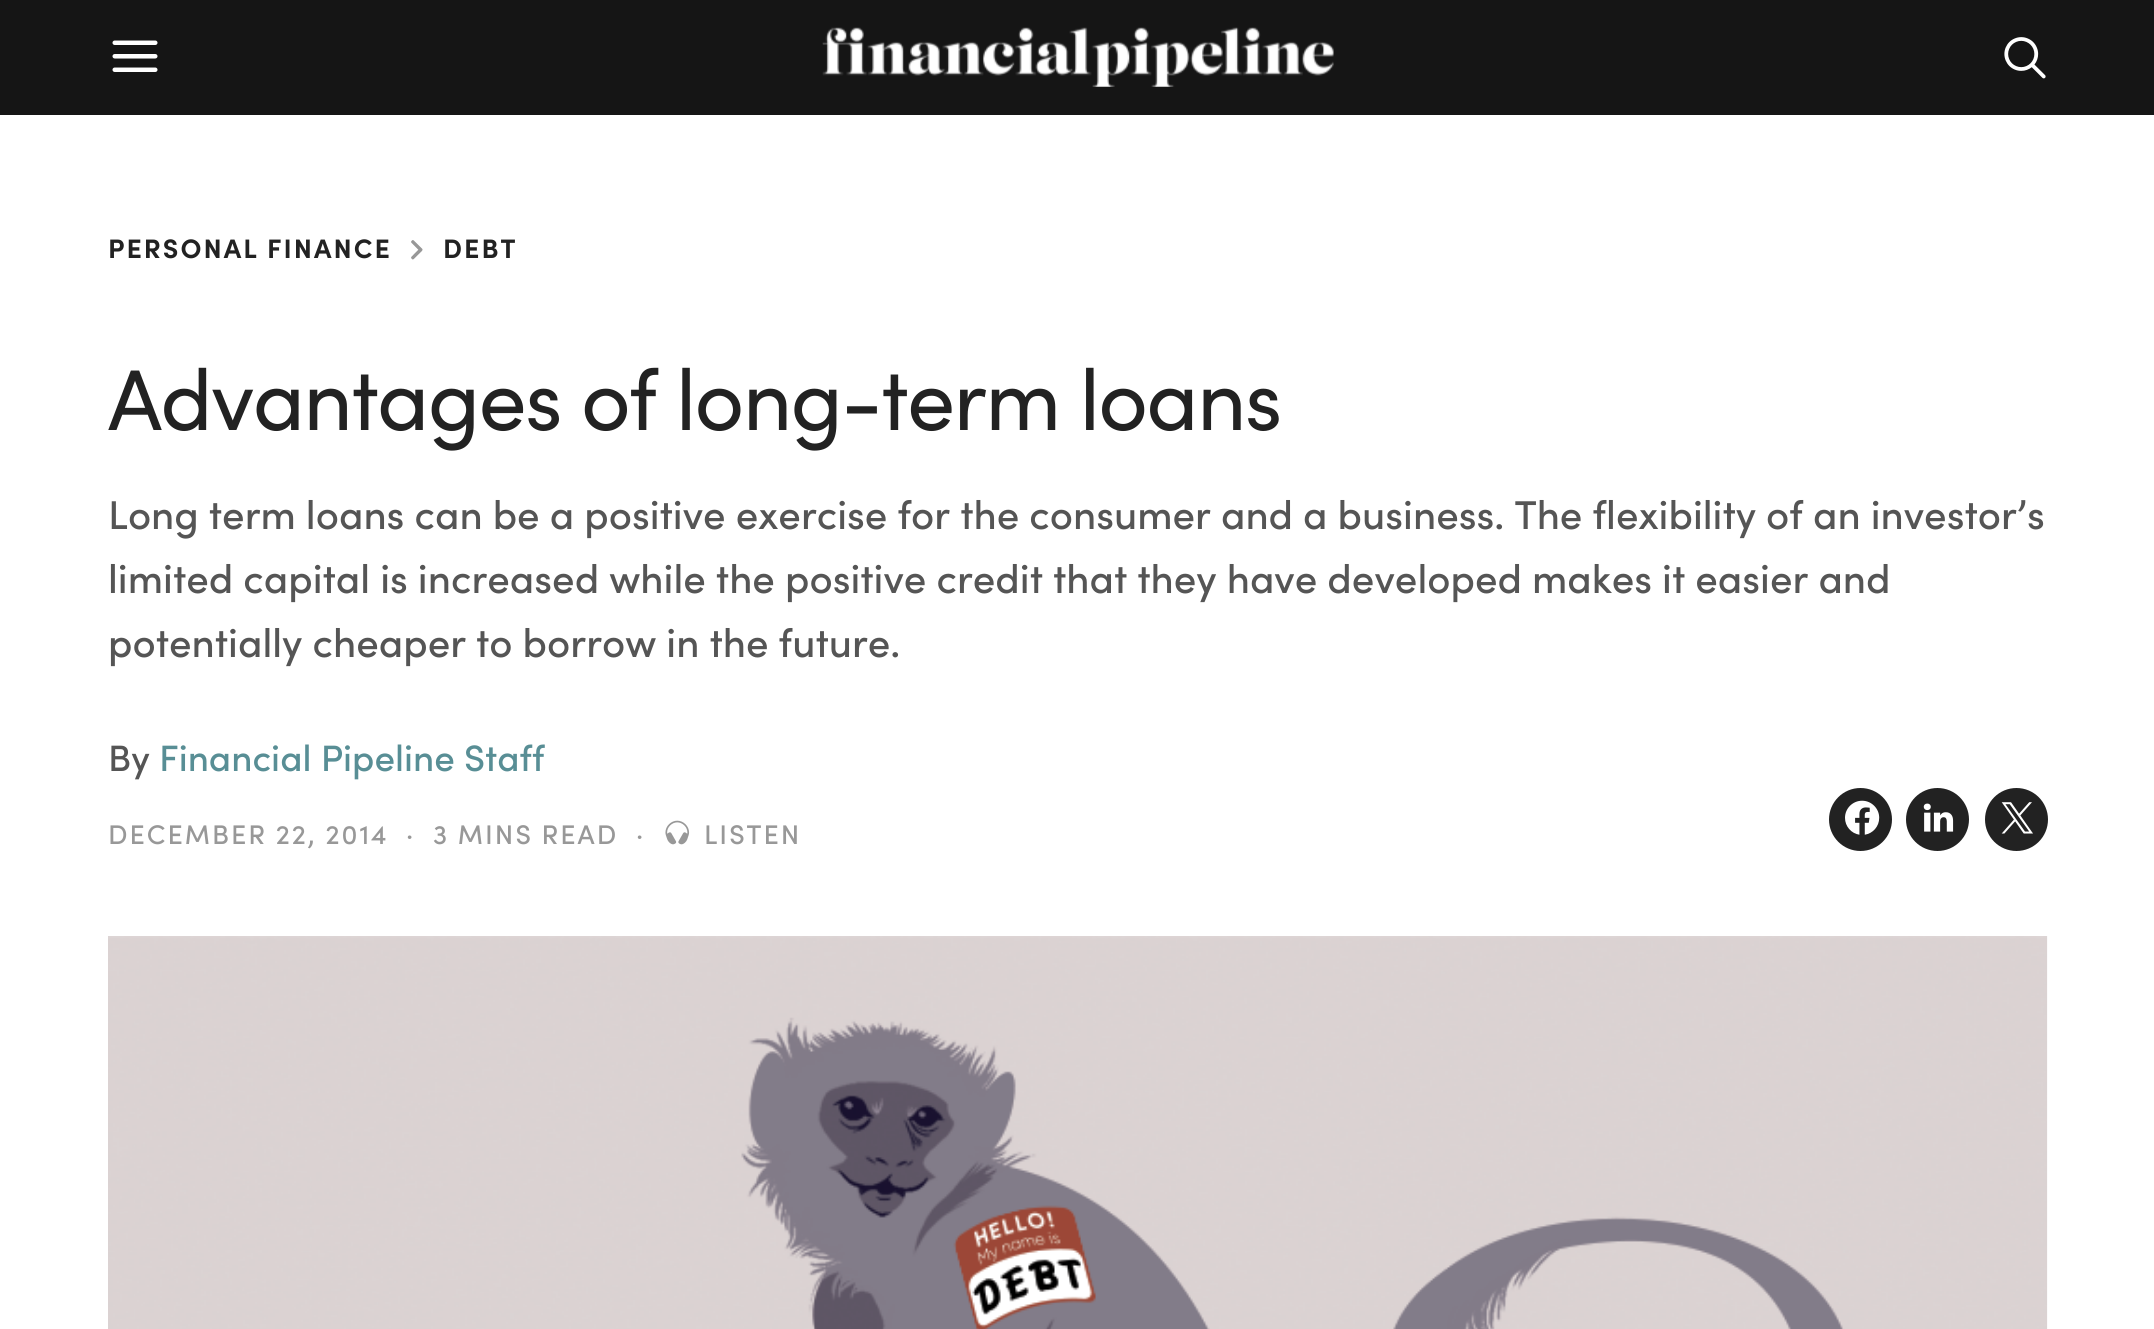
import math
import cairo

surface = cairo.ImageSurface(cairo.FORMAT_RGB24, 2154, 1329)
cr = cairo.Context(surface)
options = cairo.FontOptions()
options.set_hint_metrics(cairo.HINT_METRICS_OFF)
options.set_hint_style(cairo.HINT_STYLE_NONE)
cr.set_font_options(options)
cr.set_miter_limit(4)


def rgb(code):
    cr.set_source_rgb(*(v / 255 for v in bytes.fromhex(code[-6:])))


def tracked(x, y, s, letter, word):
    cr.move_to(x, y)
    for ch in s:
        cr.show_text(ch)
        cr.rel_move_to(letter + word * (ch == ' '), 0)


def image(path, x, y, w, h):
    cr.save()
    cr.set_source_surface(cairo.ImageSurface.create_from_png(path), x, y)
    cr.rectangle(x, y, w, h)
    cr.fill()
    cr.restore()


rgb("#ffffff")
cr.paint()
rgb("#151515")
cr.rectangle(0, 0, 2154, 115)
cr.fill()
image("img/1.png", 112, 40, 46, 32)
image("img/2.png", 822, 27, 512, 60)
image("img/3.png", 2004, 37, 42, 42)
image("img/4.png", 411, 240, 12, 20)
image("img/5.png", 665, 820, 25, 25)
rgb("#222222")
cr.arc(1860.5, 819.5, 31.5, 0, 2 * math.pi)
cr.fill()
image("img/6.png", 1845, 800, 35, 35)
cr.arc(1937.5, 819.5, 31.5, 0, 2 * math.pi)
cr.fill()
image("img/7.png", 1923, 803, 31, 29)
cr.arc(2016.5, 819.5, 31.5, 0, 2 * math.pi)
cr.fill()
image("img/8.png", 2001, 802, 32, 32)
image("img/9.png", 108, 936, 1940, 393)
cr.select_font_face("Sofia", cairo.FONT_SLANT_NORMAL, cairo.FONT_WEIGHT_BOLD)
cr.set_font_size(26.75)
tracked(108, 258, "PERSONAL FINANCE", 2, 0)
tracked(443, 258, "DEBT", 2, 0)
cr.select_font_face("Sofia")
cr.set_font_size(86.3)
tracked(108, 430, "Advantages of long-term loans", -1.75, 0)
cr.select_font_face("Sofia Medium")
cr.set_font_size(40.25)
rgb("#555555")
for x, y, s in [
    (108, 529, "Long term loans can be a positive exercise for the consumer and a business. The flexibility of an investor’s"),
    (108, 593, "limited capital is increased while the positive credit that they have developed makes it easier and"),
    (108, 657, "potentially cheaper to borrow in the future."),
]:
    cr.move_to(x, y)
    cr.show_text(s)
cr.set_font_size(36.75)
cr.move_to(108, 771)
cr.show_text("By")
rgb("#588e95")
cr.move_to(159, 771)
cr.show_text("Financial Pipeline Staff")
cr.set_font_size(27)
rgb("#989898")
for x, y, s in [
    (108, 844, "DECEMBER 22, 2014"),
    (406, 844, "·"),
    (433, 844, "3 MINS READ"),
    (636, 844, "·"),
    (704, 844, "LISTEN"),
]:
    tracked(x, y, s, 2, 0)
surface.write_to_png("page.png")
